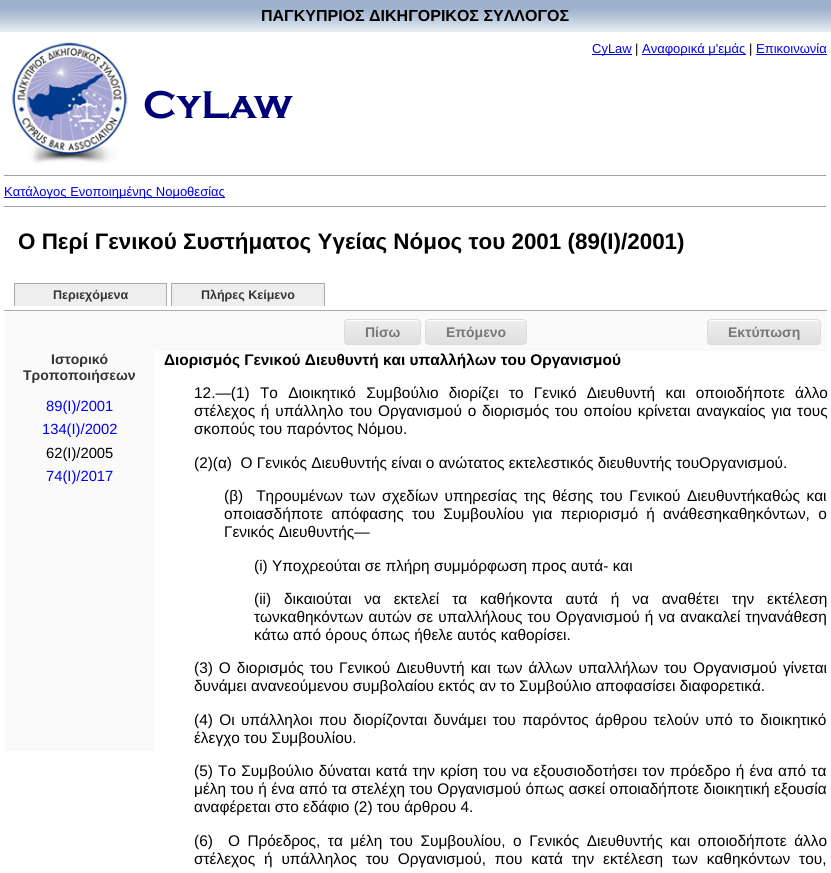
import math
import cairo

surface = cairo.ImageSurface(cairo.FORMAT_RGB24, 831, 873)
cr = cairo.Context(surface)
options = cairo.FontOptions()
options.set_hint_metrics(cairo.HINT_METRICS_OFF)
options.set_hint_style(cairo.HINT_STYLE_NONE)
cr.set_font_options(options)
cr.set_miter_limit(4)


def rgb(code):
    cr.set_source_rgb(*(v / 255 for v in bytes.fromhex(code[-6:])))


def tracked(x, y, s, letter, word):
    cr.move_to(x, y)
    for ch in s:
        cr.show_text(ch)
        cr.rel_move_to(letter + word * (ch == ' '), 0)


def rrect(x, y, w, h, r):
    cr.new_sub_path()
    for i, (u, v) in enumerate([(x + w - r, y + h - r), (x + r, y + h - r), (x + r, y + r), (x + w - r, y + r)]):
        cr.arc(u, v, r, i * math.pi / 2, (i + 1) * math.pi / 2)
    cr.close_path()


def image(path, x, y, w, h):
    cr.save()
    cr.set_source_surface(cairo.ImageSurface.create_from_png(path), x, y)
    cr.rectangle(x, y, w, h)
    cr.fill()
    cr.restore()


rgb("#ffffff")
cr.paint()
image("img/1.png", 0, 0, 831, 32)
image("img/2.png", 11, 42, 117, 122)
image("img/3.png", 144, 90, 149, 29)
for x, y, w, h, color in [
    (592, 54, 40, 1, "#0000ee"),
    (642, 54, 104, 1, "#0000ee"),
    (756, 54, 71, 1, "#0000ee"),
    (4, 175, 823, 1, "#9f9f9f"),
    (826, 175, 1, 1, "#eeeeee"),
    (4, 197, 221, 1, "#0000ee"),
    (4, 206, 823, 1, "#9f9f9f"),
    (826, 206, 1, 1, "#eeeeee"),
    (4, 310, 823, 1, "#aaaaaa"),
    (15, 284, 151, 22, "#eeeeee"),
    (14, 283, 153, 1, "#aaaaaa"),
    (166, 283, 1, 23, "#aaaaaa"),
    (14, 283, 1, 23, "#aaaaaa"),
    (172, 284, 152, 22, "#eeeeee"),
    (171, 283, 154, 1, "#aaaaaa"),
    (324, 283, 1, 23, "#aaaaaa"),
    (171, 283, 1, 23, "#aaaaaa"),
    (4, 311, 823, 40, "#fafafa"),
]:
    rgb(color)
    cr.rectangle(x, y, w, h)
    cr.fill()
cr.save()
rrect(344, 319, 77, 26, 4)
cr.clip()
gradient = cairo.LinearGradient(345, 320, 345, 344)
gradient.add_color_stop_rgba(0.05, 0.929, 0.929, 0.929, 1)
gradient.add_color_stop_rgba(1, 0.875, 0.875, 0.875, 1)
cr.set_source(gradient)
cr.rectangle(344, 320, 77, 24)
cr.fill()
cr.restore()
rgb("#ffffff")
cr.new_path()
cr.move_to(348, 321)
cr.line_to(417, 321)
cr.curve_to(419, 321, 420, 322, 420, 324)
cr.curve_to(420, 317, 410, 320, 406, 320)
cr.line_to(360, 320)
cr.curve_to(355, 320, 345, 317, 345, 324)
cr.curve_to(345, 322, 346, 321, 348, 321)
cr.close_path()
cr.fill()
rrect(344.5, 319.5, 76, 25, 3.5)
rgb("#dcdcdc")
cr.set_line_width(1)
cr.stroke()
cr.save()
rrect(425, 319, 102, 26, 4)
cr.clip()
gradient = cairo.LinearGradient(426, 320, 426, 344)
gradient.add_color_stop_rgba(0.05, 0.929, 0.929, 0.929, 1)
gradient.add_color_stop_rgba(1, 0.875, 0.875, 0.875, 1)
cr.set_source(gradient)
cr.rectangle(425, 320, 102, 24)
cr.fill()
cr.restore()
rgb("#ffffff")
cr.new_path()
cr.move_to(429, 321)
cr.line_to(523, 321)
cr.curve_to(525, 321, 526, 322, 526, 324)
cr.curve_to(526, 316, 510, 320, 507, 320)
cr.line_to(445, 320)
cr.curve_to(442, 320, 426, 316, 426, 324)
cr.curve_to(426, 322, 427, 321, 429, 321)
cr.close_path()
cr.fill()
rrect(425.5, 319.5, 101, 25, 3.5)
rgb("#dcdcdc")
cr.stroke()
cr.save()
rrect(707, 319, 114, 26, 4)
cr.clip()
gradient = cairo.LinearGradient(708, 320, 708, 344)
gradient.add_color_stop_rgba(0.05, 0.929, 0.929, 0.929, 1)
gradient.add_color_stop_rgba(1, 0.875, 0.875, 0.875, 1)
cr.set_source(gradient)
cr.rectangle(707, 320, 114, 24)
cr.fill()
cr.restore()
rgb("#ffffff")
cr.new_path()
cr.move_to(711, 321)
cr.line_to(817, 321)
cr.curve_to(819, 321, 820, 322, 820, 324)
cr.curve_to(820, 322, 819, 320, 817, 320)
cr.line_to(729, 320)
cr.curve_to(727, 320, 708, 315, 708, 324)
cr.curve_to(708, 322, 709, 321, 711, 321)
cr.close_path()
cr.fill()
rrect(707.5, 319.5, 113, 25, 3.5)
rgb("#dcdcdc")
cr.stroke()
rgb("#fafafa")
cr.rectangle(4, 351, 150, 400)
cr.fill()
cr.select_font_face("Liberation Sans", cairo.FONT_SLANT_NORMAL, cairo.FONT_WEIGHT_BOLD)
cr.set_font_size(16)
rgb("#000000")
cr.move_to(261, 21)
cr.show_text("ΠΑΓΚΥΠΡΙΟΣ ΔΙΚΗΓΟΡΙΚΟΣ ΣΥΛΛΟΓΟΣ")
cr.select_font_face("Liberation Sans")
cr.set_font_size(13)
rgb("#0000ee")
cr.move_to(592, 53)
cr.show_text("CyLaw")
rgb("#000000")
cr.move_to(635, 53)
cr.show_text("|")
rgb("#0000ee")
cr.move_to(642, 53)
cr.show_text("Αναφορικά μ'εμάς")
rgb("#000000")
cr.move_to(749, 53)
cr.show_text("|")
rgb("#0000ee")
cr.move_to(756, 53)
cr.show_text("Επικοινωνία")
cr.move_to(4, 196)
cr.show_text("Κατάλογος Ενοποιημένης Νομοθεσίας")
cr.select_font_face("Liberation Sans", cairo.FONT_SLANT_NORMAL, cairo.FONT_WEIGHT_BOLD)
cr.set_font_size(22.4)
rgb("#000000")
cr.move_to(18, 249)
cr.show_text("Ο Περί Γενικού Συστήματος Υγείας Νόμος του 2001 (89(I)/2001)")
cr.set_font_size(12.5)
rgb("#333333")
cr.move_to(53, 299)
cr.show_text("Περιεχόμενα")
cr.move_to(201, 299)
cr.show_text("Πλήρες Κείμενο")
cr.set_font_size(14)
rgb("#777777")
for x, y, s in [
    (365, 337, "Πίσω"),
    (446, 337, "Επόμενο"),
    (728, 337, "Εκτύπωση"),
]:
    cr.move_to(x, y)
    cr.show_text(s)
rgb("#333333")
cr.move_to(51, 364)
cr.show_text("Ιστορικό")
cr.move_to(23, 380)
cr.show_text("Τροποποιήσεων")
cr.select_font_face("Liberation Sans")
cr.set_font_size(14.75)
rgb("#0000ee")
cr.move_to(46, 411)
cr.show_text("89(I)/2001")
cr.move_to(42, 434)
cr.show_text("134(I)/2002")
rgb("#000000")
cr.move_to(46, 458)
cr.show_text("62(I)/2005")
rgb("#0000ee")
cr.move_to(46, 481)
cr.show_text("74(I)/2017")
cr.select_font_face("Liberation Sans", cairo.FONT_SLANT_NORMAL, cairo.FONT_WEIGHT_BOLD)
cr.set_font_size(15.4)
rgb("#000000")
cr.move_to(164, 365)
cr.show_text("Διορισμός Γενικού Διευθυντή και υπαλλήλων του Οργανισμού")
cr.select_font_face("Liberation Sans")
tracked(194, 398, "12.—(1) Το Διοικητικό Συμβούλιο διορίζει το Γενικό Διευθυντή και οποιοδήποτε άλλο", 0, 6)
tracked(194, 416, "στέλεχος ή υπάλληλο του Οργανισμού ο διορισμός του οποίου κρίνεται αναγκαίος για τους", 0, 1.5)
cr.move_to(194, 434)
cr.show_text("σκοπούς του παρόντος Νόμου.")
cr.move_to(194, 468)
cr.show_text("(2)(α)  Ο Γενικός Διευθυντής είναι ο ανώτατος εκτελεστικός διευθυντής τουΟργανισμού.")
tracked(224, 501, "(β)  Τηρουμένων των σχεδίων υπηρεσίας της θέσης του Γενικού Διευθυντήκαθώς και", 0, 2.25)
tracked(224, 519, "οποιασδήποτε απόφασης του Συμβουλίου για περιορισμό ή ανάθεσηκαθηκόντων, ο", 0, 4)
cr.move_to(224, 537)
cr.show_text("Γενικός Διευθυντής—")
cr.move_to(254, 571)
cr.show_text("(i) Υποχρεούται σε πλήρη συμμόρφωση προς αυτά- και")
tracked(254, 604, "(ii) δικαιούται να εκτελεί τα καθήκοντα αυτά ή να αναθέτει την εκτέλεση", 0, 8.6)
tracked(254, 622, "τωνκαθηκόντων αυτών σε υπαλλήλους του Οργανισμού ή να ανακαλεί τηνανάθεση", 0, 0.9)
cr.move_to(254, 640)
cr.show_text("κάτω από όρους όπως ήθελε αυτός καθορίσει.")
tracked(194, 673, "(3) Ο διορισμός του Γενικού Διευθυντή και των άλλων υπαλλήλων του Οργανισμού γίνεται", 0, 1.75)
cr.move_to(194, 691)
cr.show_text("δυνάμει ανανεούμενου συμβολαίου εκτός αν το Συμβούλιο αποφασίσει διαφορετικά.")
tracked(194, 725, "(4) Οι υπάλληλοι που διορίζονται δυνάμει του παρόντος άρθρου τελούν υπό το διοικητικό", 0, 2.1)
cr.move_to(194, 743)
cr.show_text("έλεγχο του Συμβουλίου.")
tracked(194, 776, "(5) Το Συμβούλιο δύναται κατά την κρίση του να εξουσιοδοτήσει τον πρόεδρο ή ένα από τα", 0, 0.9)
tracked(194, 794, "μέλη του ή ένα από τα στελέχη του Οργανισμού όπως ασκεί οποιαδήποτε διοικητική εξουσία", 0, 0.25)
cr.move_to(194, 812)
cr.show_text("αναφέρεται στο εδάφιο (2) του άρθρου 4.")
tracked(194, 846, "(6)  Ο Πρόεδρος, τα μέλη του Συμβουλίου, ο Γενικός Διευθυντής και οποιοδήποτε άλλο", 0, 3.25)
tracked(194, 864, "στέλεχος ή υπάλληλος του Οργανισμού, που κατά την εκτέλεση των καθηκόντων του,", 0, 4.6)
surface.write_to_png("page.png")
